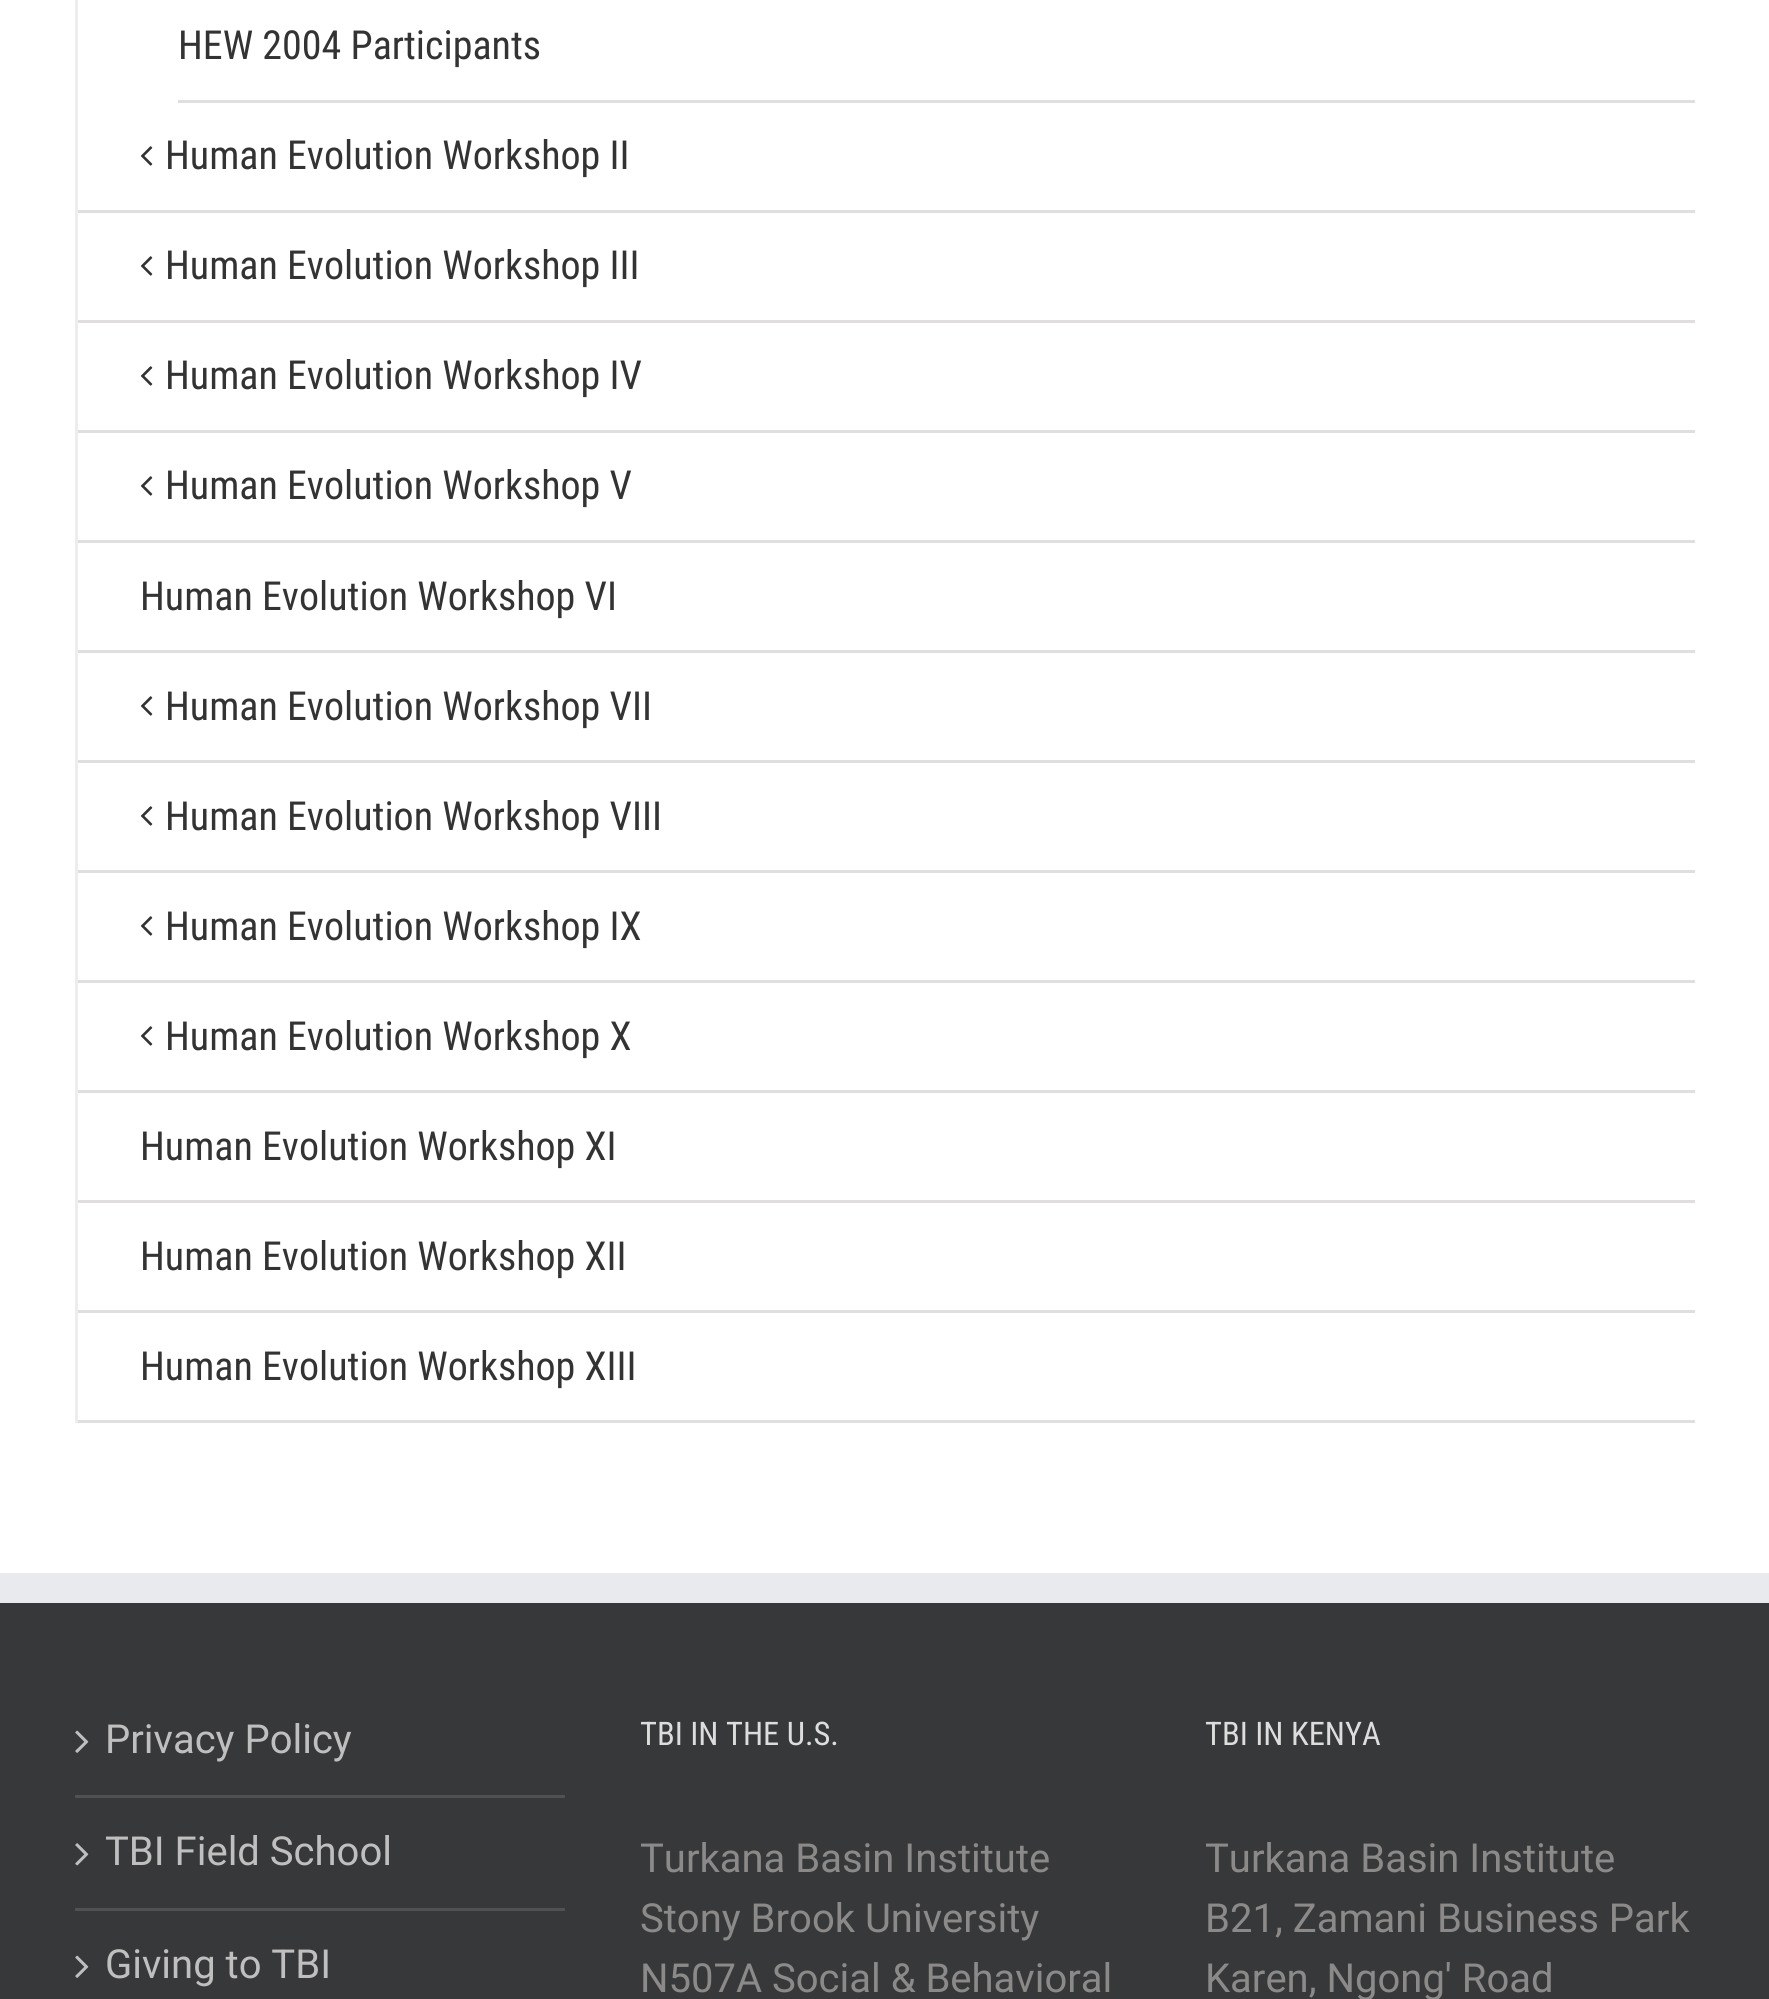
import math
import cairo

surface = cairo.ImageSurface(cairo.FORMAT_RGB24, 1769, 1999)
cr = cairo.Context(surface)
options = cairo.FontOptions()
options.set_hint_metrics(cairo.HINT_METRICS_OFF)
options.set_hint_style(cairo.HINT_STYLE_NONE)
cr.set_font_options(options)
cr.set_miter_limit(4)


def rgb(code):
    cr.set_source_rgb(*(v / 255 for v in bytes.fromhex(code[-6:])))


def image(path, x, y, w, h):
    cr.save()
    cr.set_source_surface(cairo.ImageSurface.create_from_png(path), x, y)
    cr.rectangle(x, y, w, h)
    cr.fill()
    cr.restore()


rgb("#ffffff")
cr.paint()
for x, y, w, h, color in [
    (75, 0, 3, 1423, "#ededed"),
    (178, 100, 1517, 3, "#e0dede"),
    (78, 210, 1617, 3, "#e0dede"),
]:
    rgb(color)
    cr.rectangle(x, y, w, h)
    cr.fill()
image("img/1.png", 141, 146, 12, 20)
cr.rectangle(78, 320, 1617, 3)
cr.fill()
image("img/1.png", 141, 256, 12, 20)
cr.rectangle(78, 430, 1617, 3)
cr.fill()
image("img/1.png", 141, 366, 12, 20)
cr.rectangle(78, 540, 1617, 3)
cr.fill()
image("img/1.png", 141, 476, 12, 20)
cr.rectangle(78, 650, 1617, 3)
cr.fill()
cr.rectangle(78, 760, 1617, 3)
cr.fill()
image("img/1.png", 141, 696, 12, 20)
cr.rectangle(78, 870, 1617, 3)
cr.fill()
image("img/1.png", 141, 806, 12, 20)
cr.rectangle(78, 980, 1617, 3)
cr.fill()
image("img/1.png", 141, 916, 12, 20)
cr.rectangle(78, 1090, 1617, 3)
cr.fill()
image("img/1.png", 141, 1026, 12, 20)
for x, y, w, h, color in [
    (78, 1200, 1617, 3, "#e0dede"),
    (78, 1310, 1617, 3, "#e0dede"),
    (78, 1420, 1617, 3, "#e0dede"),
    (0, 1603, 1769, 396, "#363839"),
    (0, 1573, 1769, 30, "#e9eaee"),
    (75, 1795, 490, 3, "#505152"),
]:
    rgb(color)
    cr.rectangle(x, y, w, h)
    cr.fill()
image("img/2.png", 75, 1730, 14, 23)
cr.rectangle(75, 1908, 490, 3)
cr.fill()
image("img/3.png", 75, 1843, 14, 23)
image("img/2.png", 75, 1955, 14, 23)
cr.select_font_face("Roboto Condensed")
cr.set_font_size(40)
rgb("#333333")
for x, y, s in [
    (178, 59, "HEW 2004 Participants"),
    (165, 169, "Human Evolution Workshop II"),
    (165, 279, "Human Evolution Workshop III"),
    (165, 389, "Human Evolution Workshop IV"),
    (165, 499, "Human Evolution Workshop V"),
    (140, 610, "Human Evolution Workshop VI"),
    (165, 720, "Human Evolution Workshop VII"),
    (165, 830, "Human Evolution Workshop VIII"),
    (165, 940, "Human Evolution Workshop IX"),
    (165, 1050, "Human Evolution Workshop X"),
    (140, 1160, "Human Evolution Workshop XI"),
    (140, 1270, "Human Evolution Workshop XII"),
    (140, 1380, "Human Evolution Workshop XIII"),
]:
    cr.move_to(x, y)
    cr.show_text(s)
cr.select_font_face("Roboto")
rgb("#bfbfbf")
for x, y, s in [
    (105, 1753, "Privacy Policy"),
    (105, 1865, "TBI Field School"),
    (105, 1978, "Giving to TBI"),
]:
    cr.move_to(x, y)
    cr.show_text(s)
cr.select_font_face("Roboto Condensed")
cr.set_font_size(32.5)
rgb("#dddddd")
cr.move_to(640, 1745)
cr.show_text("TBI IN THE U.S.")
cr.select_font_face("Roboto")
cr.set_font_size(40)
rgb("#8c8989")
for x, y, s in [
    (640, 1872, "Turkana Basin Institute"),
    (640, 1932, "Stony Brook University"),
    (640, 1992, "N507A Social & Behavioral"),
]:
    cr.move_to(x, y)
    cr.show_text(s)
cr.select_font_face("Roboto Condensed")
cr.set_font_size(32.5)
rgb("#dddddd")
cr.move_to(1205, 1745)
cr.show_text("TBI IN KENYA")
cr.select_font_face("Roboto")
cr.set_font_size(40)
rgb("#8c8989")
for x, y, s in [
    (1205, 1872, "Turkana Basin Institute"),
    (1205, 1932, "B21, Zamani Business Park"),
    (1205, 1992, "Karen, Ngong' Road"),
]:
    cr.move_to(x, y)
    cr.show_text(s)
surface.write_to_png("page.png")
